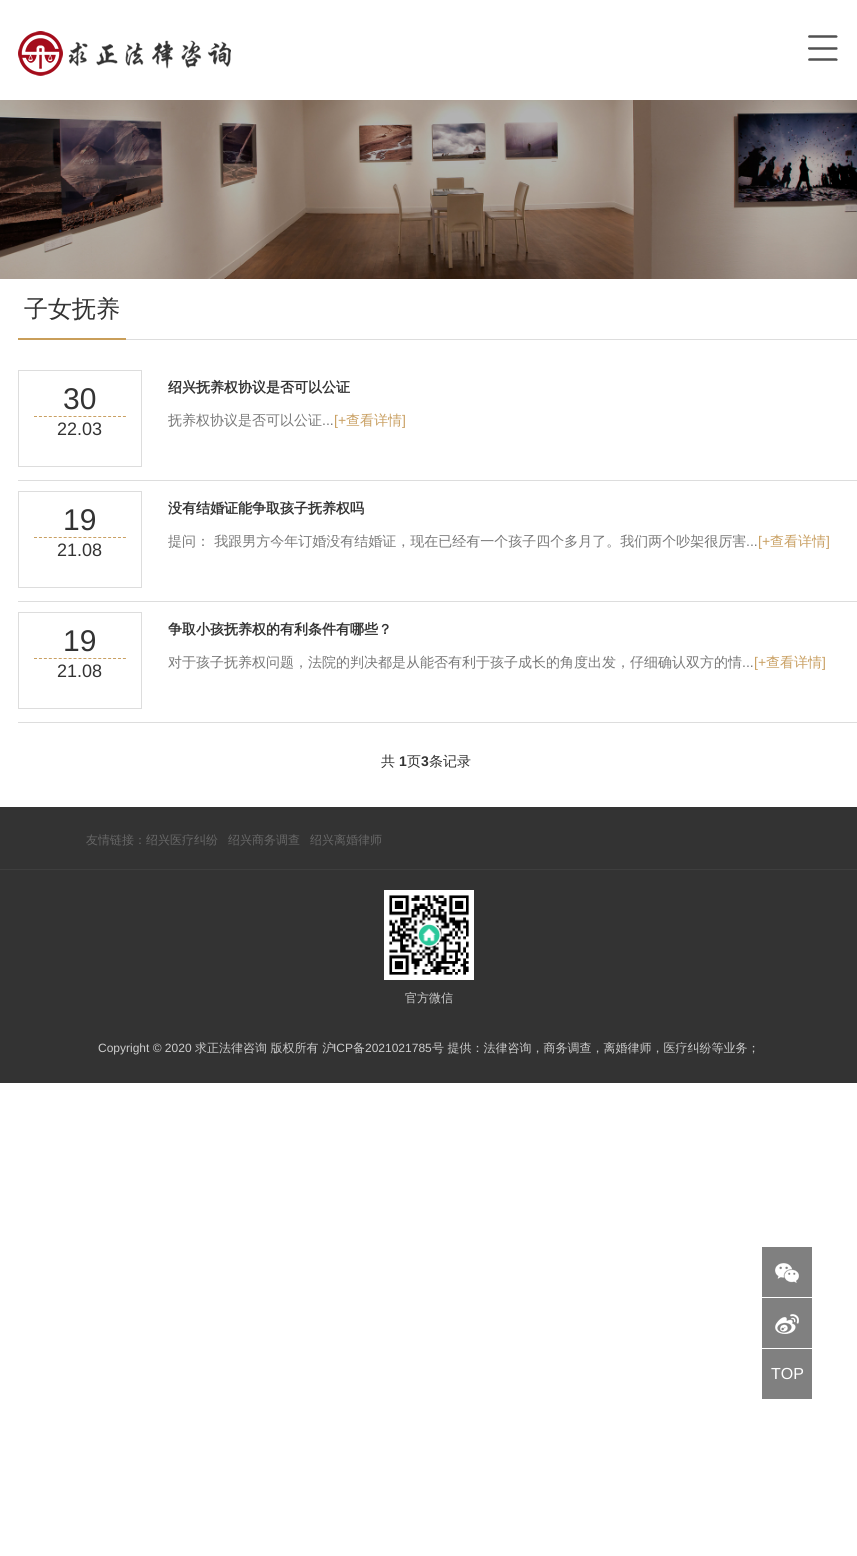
import math
import cairo

surface = cairo.ImageSurface(cairo.FORMAT_RGB24, 857, 1556)
cr = cairo.Context(surface)
options = cairo.FontOptions()
options.set_hint_metrics(cairo.HINT_METRICS_OFF)
options.set_hint_style(cairo.HINT_STYLE_NONE)
cr.set_font_options(options)
cr.set_miter_limit(4)


def rgb(code):
    cr.set_source_rgb(*(v / 255 for v in bytes.fromhex(code[-6:])))


def image(path, x, y, w, h):
    cr.save()
    cr.set_source_surface(cairo.ImageSurface.create_from_png(path), x, y)
    cr.rectangle(x, y, w, h)
    cr.fill()
    cr.restore()


rgb("#ffffff")
cr.paint()
image("img/1.png", 18, 31, 213, 45)
image("img/2.png", 808, 35, 30, 26)
image("img/3.png", 0, 100, 857, 179)
for x, y, w, h, color in [
    (126, 339, 731, 1, "#dddddd"),
    (18, 338, 108, 2, "#c99e5a"),
    (18, 480, 839, 1, "#dddddd"),
]:
    rgb(color)
    cr.rectangle(x, y, w, h)
    cr.fill()
cr.rectangle(18.5, 370.5, 123, 96)
cr.set_line_width(1)
cr.stroke()
cr.new_path()
cr.move_to(34, 416.5)
cr.line_to(126, 416.5)
rgb("#c9a063")
cr.set_dash([3, 1.94])
cr.stroke()
rgb("#dddddd")
cr.rectangle(18, 601, 839, 1)
cr.fill()
cr.rectangle(18.5, 491.5, 123, 96)
cr.set_dash([])
cr.stroke()
cr.new_path()
cr.move_to(34, 537.5)
cr.line_to(126, 537.5)
rgb("#c9a063")
cr.set_dash([3, 1.94])
cr.stroke()
rgb("#dddddd")
cr.rectangle(18, 722, 839, 1)
cr.fill()
cr.rectangle(18.5, 612.5, 123, 96)
cr.set_dash([])
cr.stroke()
cr.new_path()
cr.move_to(34, 658.5)
cr.line_to(126, 658.5)
rgb("#c9a063")
cr.set_dash([3, 1.94])
cr.stroke()
rgb("#333333")
cr.rectangle(0, 807, 857, 276)
cr.fill()
rgb("#3e3e3e")
cr.rectangle(0, 869, 857, 1)
cr.fill()
image("img/4.png", 384, 890, 90, 90)
rgb("#808080")
cr.rectangle(762, 1247, 50, 50)
cr.fill()
image("img/5.png", 775, 1263, 24, 20)
cr.rectangle(762, 1298, 50, 50)
cr.fill()
image("img/6.png", 775, 1314, 24, 20)
cr.rectangle(762, 1349, 50, 50)
cr.fill()
cr.select_font_face("WenQuanYi Zen Hei Medium")
cr.set_font_size(24)
rgb("#333333")
cr.move_to(24, 317)
cr.show_text("子女抚养")
cr.select_font_face("Liberation Sans")
cr.set_font_size(30)
cr.move_to(63, 409)
cr.show_text("30")
cr.set_font_size(18)
cr.move_to(57, 435)
cr.show_text("22.03")
cr.select_font_face("WenQuanYi Zen Hei", cairo.FONT_SLANT_NORMAL, cairo.FONT_WEIGHT_BOLD)
cr.set_font_size(14)
cr.move_to(168, 392)
cr.show_text("绍兴抚养权协议是否可以公证")
cr.select_font_face("WenQuanYi Zen Hei Medium")
rgb("#787878")
cr.move_to(168, 425)
cr.show_text("抚养权协议是否可以公证")
cr.select_font_face("Liberation Sans")
cr.move_to(322, 425)
cr.show_text("...")
rgb("#c9a063")
cr.move_to(334, 425)
cr.show_text("[+")
cr.select_font_face("WenQuanYi Zen Hei Medium")
cr.move_to(346, 425)
cr.show_text("查看详情")
cr.select_font_face("Liberation Sans")
cr.move_to(402, 425)
cr.show_text("]")
cr.set_font_size(30)
rgb("#333333")
cr.move_to(63, 530)
cr.show_text("19")
cr.set_font_size(18)
cr.move_to(57, 556)
cr.show_text("21.08")
cr.select_font_face("WenQuanYi Zen Hei", cairo.FONT_SLANT_NORMAL, cairo.FONT_WEIGHT_BOLD)
cr.set_font_size(14)
cr.move_to(168, 513)
cr.show_text("没有结婚证能争取孩子抚养权吗")
cr.select_font_face("WenQuanYi Zen Hei Medium")
rgb("#787878")
cr.move_to(168, 546)
cr.show_text("提问： 我跟男方今年订婚没有结婚证，现在已经有一个孩子四个多月了。我们两个吵架很厉害")
cr.select_font_face("Liberation Sans")
cr.move_to(746, 546)
cr.show_text("...")
rgb("#c9a063")
cr.move_to(758, 546)
cr.show_text("[+")
cr.select_font_face("WenQuanYi Zen Hei Medium")
cr.move_to(770, 546)
cr.show_text("查看详情")
cr.select_font_face("Liberation Sans")
cr.move_to(826, 546)
cr.show_text("]")
cr.set_font_size(30)
rgb("#333333")
cr.move_to(63, 651)
cr.show_text("19")
cr.set_font_size(18)
cr.move_to(57, 677)
cr.show_text("21.08")
cr.select_font_face("WenQuanYi Zen Hei", cairo.FONT_SLANT_NORMAL, cairo.FONT_WEIGHT_BOLD)
cr.set_font_size(14)
cr.move_to(168, 634)
cr.show_text("争取小孩抚养权的有利条件有哪些？")
cr.select_font_face("WenQuanYi Zen Hei Medium")
rgb("#787878")
cr.move_to(168, 667)
cr.show_text("对于孩子抚养权问题，法院的判决都是从能否有利于孩子成长的角度出发，仔细确认双方的情")
cr.select_font_face("Liberation Sans")
cr.move_to(742, 667)
cr.show_text("...")
rgb("#c9a063")
cr.move_to(754, 667)
cr.show_text("[+")
cr.select_font_face("WenQuanYi Zen Hei Medium")
cr.move_to(766, 667)
cr.show_text("查看详情")
cr.select_font_face("Liberation Sans")
cr.move_to(822, 667)
cr.show_text("]")
cr.select_font_face("WenQuanYi Zen Hei Medium")
rgb("#333333")
cr.move_to(381, 766)
cr.show_text("共")
cr.select_font_face("Liberation Sans", cairo.FONT_SLANT_NORMAL, cairo.FONT_WEIGHT_BOLD)
cr.move_to(399, 766)
cr.show_text("1")
cr.select_font_face("WenQuanYi Zen Hei Medium")
cr.move_to(407, 766)
cr.show_text("页")
cr.select_font_face("Liberation Sans", cairo.FONT_SLANT_NORMAL, cairo.FONT_WEIGHT_BOLD)
cr.move_to(421, 766)
cr.show_text("3")
cr.select_font_face("WenQuanYi Zen Hei Medium")
cr.move_to(429, 766)
cr.show_text("条记录")
cr.set_font_size(12)
rgb("#666666")
for x, y, s in [
    (86, 844, "友情链接：绍兴医疗纠纷"),
    (228, 844, "绍兴商务调查"),
    (310, 844, "绍兴离婚律师"),
]:
    cr.move_to(x, y)
    cr.show_text(s)
rgb("#cccccc")
cr.move_to(405, 1002)
cr.show_text("官方微信")
cr.select_font_face("Liberation Sans")
cr.move_to(98, 1052)
cr.show_text("Copyright © 2020")
cr.select_font_face("WenQuanYi Zen Hei Medium")
cr.move_to(195, 1052)
cr.show_text("求正法律咨询 版权所有 沪")
cr.select_font_face("Liberation Sans")
cr.move_to(333, 1052)
cr.show_text("ICP")
cr.select_font_face("WenQuanYi Zen Hei Medium")
cr.move_to(353, 1052)
cr.show_text("备")
cr.select_font_face("Liberation Sans")
cr.move_to(365, 1052)
cr.show_text("2021021785")
cr.select_font_face("WenQuanYi Zen Hei Medium")
cr.move_to(432, 1052)
cr.show_text("号 提供：法律咨询，商务调查，离婚律师，医疗纠纷等业务；")
cr.select_font_face("Liberation Sans")
cr.set_font_size(16)
rgb("#ffffff")
cr.move_to(771, 1379)
cr.show_text("TOP")
surface.write_to_png("page.png")
